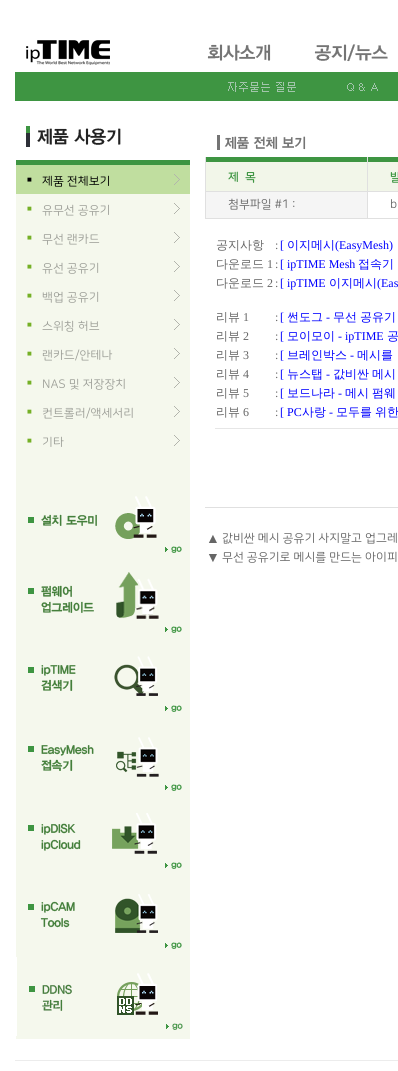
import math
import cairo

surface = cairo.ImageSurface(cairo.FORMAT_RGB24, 398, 1071)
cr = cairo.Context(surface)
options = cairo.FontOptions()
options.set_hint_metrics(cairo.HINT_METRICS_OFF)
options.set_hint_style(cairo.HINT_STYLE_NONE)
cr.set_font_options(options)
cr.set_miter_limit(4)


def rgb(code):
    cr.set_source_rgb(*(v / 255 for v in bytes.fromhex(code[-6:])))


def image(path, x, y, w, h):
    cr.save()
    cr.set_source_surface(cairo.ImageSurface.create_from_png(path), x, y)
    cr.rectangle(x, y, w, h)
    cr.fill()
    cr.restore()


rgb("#ffffff")
cr.paint()
image("img/1.png", 26, 40, 84, 25)
image("img/2.png", 207, 44, 64, 17)
image("img/3.png", 314, 44, 74, 18)
rgb("#3e9542")
cr.rectangle(15, 72, 383, 29)
cr.fill()
image("img/4.png", 228, 82, 68, 10)
image("img/5.png", 347, 83, 31, 8)
image("img/6.png", 26, 126, 95, 21)
image("img/7.png", 217, 135, 89, 15)
for x, y, w, h, color in [
    (16, 194, 174, 845, "#f5f8ed"),
    (16, 160, 174, 5, "#3e9542"),
    (16, 165, 174, 29, "#c0de9f"),
]:
    rgb(color)
    cr.rectangle(x, y, w, h)
    cr.fill()
image("img/8.png", 174, 174, 6, 11)
image("img/9.png", 174, 203, 6, 11)
image("img/9.png", 174, 232, 6, 11)
image("img/9.png", 174, 261, 6, 11)
image("img/9.png", 174, 290, 6, 11)
image("img/9.png", 174, 319, 6, 11)
image("img/9.png", 174, 348, 6, 11)
image("img/9.png", 174, 377, 6, 11)
image("img/9.png", 174, 406, 6, 11)
image("img/9.png", 174, 435, 6, 11)
image("img/10.png", 28, 496, 154, 57)
image("img/11.png", 28, 572, 154, 61)
image("img/12.png", 28, 656, 154, 56)
image("img/13.png", 28, 737, 154, 54)
image("img/14.png", 28, 813, 154, 56)
image("img/15.png", 28, 894, 154, 55)
image("img/16.png", 16, 957, 167, 79)
image("img/17.png", 206, 157, 161, 35)
image("img/18.png", 368, 157, 30, 35)
for x, y, w, h, color in [
    (206, 192, 161, 26, "#f5f5f5"),
    (367, 218, 31, 1, "#e0e0e0"),
    (367, 157, 1, 62, "#e0e0e0"),
    (205, 218, 163, 1, "#e0e0e0"),
    (205, 157, 1, 62, "#e0e0e0"),
    (215, 428, 183, 1, "#e6e6e6"),
    (205, 507, 193, 1, "#e0e0e0"),
    (15, 1060, 383, 1, "#ececec"),
]:
    rgb(color)
    cr.rectangle(x, y, w, h)
    cr.fill()
cr.select_font_face("Liberation Serif")
cr.set_font_size(8)
rgb("#000000")
cr.move_to(27, 182)
cr.show_text("■")
cr.select_font_face("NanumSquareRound")
cr.set_font_size(12)
cr.move_to(42, 185)
cr.show_text("제품 전체보기")
cr.select_font_face("Liberation Serif")
cr.set_font_size(8)
rgb("#75b026")
cr.move_to(27, 211)
cr.show_text("■")
cr.select_font_face("NanumSquareRound")
cr.set_font_size(12)
rgb("#9d9f98")
cr.move_to(42, 214)
cr.show_text("유무선 공유기")
cr.select_font_face("Liberation Serif")
cr.set_font_size(8)
rgb("#75b026")
cr.move_to(27, 240)
cr.show_text("■")
cr.select_font_face("NanumSquareRound")
cr.set_font_size(12)
rgb("#9d9f98")
cr.move_to(42, 243)
cr.show_text("무선 랜카드")
cr.select_font_face("Liberation Serif")
cr.set_font_size(8)
rgb("#75b026")
cr.move_to(27, 269)
cr.show_text("■")
cr.select_font_face("NanumSquareRound")
cr.set_font_size(12)
rgb("#9d9f98")
cr.move_to(42, 272)
cr.show_text("유선 공유기")
cr.select_font_face("Liberation Serif")
cr.set_font_size(8)
rgb("#75b026")
cr.move_to(27, 298)
cr.show_text("■")
cr.select_font_face("NanumSquareRound")
cr.set_font_size(12)
rgb("#9d9f98")
cr.move_to(42, 301)
cr.show_text("백업 공유기")
cr.select_font_face("Liberation Serif")
cr.set_font_size(8)
rgb("#75b026")
cr.move_to(27, 327)
cr.show_text("■")
cr.select_font_face("NanumSquareRound")
cr.set_font_size(12)
rgb("#9d9f98")
cr.move_to(42, 330)
cr.show_text("스위칭 허브")
cr.select_font_face("Liberation Serif")
cr.set_font_size(8)
rgb("#75b026")
cr.move_to(27, 356)
cr.show_text("■")
cr.select_font_face("NanumSquareRound")
cr.set_font_size(12)
rgb("#9d9f98")
cr.move_to(42, 359)
cr.show_text("랜카드/안테나")
cr.select_font_face("Liberation Serif")
cr.set_font_size(8)
rgb("#75b026")
cr.move_to(27, 385)
cr.show_text("■")
cr.select_font_face("NanumSquareRound")
cr.set_font_size(12)
rgb("#9d9f98")
cr.move_to(42, 388)
cr.show_text("NAS 및 저장장치")
cr.select_font_face("Liberation Serif")
cr.set_font_size(8)
rgb("#75b026")
cr.move_to(27, 414)
cr.show_text("■")
cr.select_font_face("NanumSquareRound")
cr.set_font_size(12)
rgb("#9d9f98")
cr.move_to(42, 417)
cr.show_text("컨트롤러/액세서리")
cr.select_font_face("Liberation Serif")
cr.set_font_size(8)
rgb("#75b026")
cr.move_to(27, 443)
cr.show_text("■")
cr.select_font_face("NanumSquareRound")
cr.set_font_size(12)
rgb("#9d9f98")
cr.move_to(42, 446)
cr.show_text("기타")
cr.select_font_face("NanumSquareRound", cairo.FONT_SLANT_NORMAL, cairo.FONT_WEIGHT_BOLD)
rgb("#3e9542")
cr.move_to(228, 181)
cr.show_text("제  목")
cr.move_to(390, 181)
cr.show_text("발")
cr.select_font_face("NanumSquareRound")
rgb("#666666")
cr.move_to(228, 208)
cr.show_text("첨부파일 #1 :")
cr.move_to(390, 208)
cr.show_text("b")
cr.select_font_face("WenQuanYi Zen Hei Medium")
cr.move_to(216, 249)
cr.show_text("공지사항")
cr.select_font_face("Liberation Serif")
cr.move_to(275, 249)
cr.show_text(":")
rgb("#0000ff")
cr.move_to(280, 249)
cr.show_text("[")
cr.select_font_face("WenQuanYi Zen Hei Medium")
cr.move_to(287, 249)
cr.show_text("이지메시")
cr.select_font_face("Liberation Serif")
cr.move_to(335, 249)
cr.show_text("(EasyMesh)")
cr.select_font_face("WenQuanYi Zen Hei Medium")
rgb("#666666")
cr.move_to(216, 268)
cr.show_text("다운로드")
cr.select_font_face("Liberation Serif")
cr.move_to(267, 268)
cr.show_text("1")
cr.move_to(275, 268)
cr.show_text(":")
rgb("#0000ff")
cr.move_to(280, 268)
cr.show_text("[ ipTIME Mesh")
cr.select_font_face("WenQuanYi Zen Hei Medium")
cr.move_to(358, 268)
cr.show_text("접속기")
rgb("#666666")
cr.move_to(216, 287)
cr.show_text("다운로드")
cr.select_font_face("Liberation Serif")
cr.move_to(267, 287)
cr.show_text("2")
cr.move_to(275, 287)
cr.show_text(":")
rgb("#0000ff")
cr.move_to(280, 287)
cr.show_text("[ ipTIME")
cr.select_font_face("WenQuanYi Zen Hei Medium")
cr.move_to(329, 287)
cr.show_text("이지메시")
cr.select_font_face("Liberation Serif")
cr.move_to(377, 287)
cr.show_text("(Eas")
cr.select_font_face("WenQuanYi Zen Hei Medium")
rgb("#666666")
cr.move_to(216, 321)
cr.show_text("리뷰")
cr.select_font_face("Liberation Serif")
cr.move_to(243, 321)
cr.show_text("1")
cr.move_to(275, 321)
cr.show_text(":")
rgb("#0000ff")
cr.move_to(280, 321)
cr.show_text("[")
cr.select_font_face("WenQuanYi Zen Hei Medium")
cr.move_to(287, 321)
cr.show_text("썬도그")
cr.select_font_face("Liberation Serif")
cr.move_to(326, 321)
cr.show_text("-")
cr.select_font_face("WenQuanYi Zen Hei Medium")
cr.move_to(333, 321)
cr.show_text("무선")
cr.move_to(360, 321)
cr.show_text("공유기")
rgb("#666666")
cr.move_to(216, 340)
cr.show_text("리뷰")
cr.select_font_face("Liberation Serif")
cr.move_to(243, 340)
cr.show_text("2")
cr.move_to(275, 340)
cr.show_text(":")
rgb("#0000ff")
cr.move_to(280, 340)
cr.show_text("[")
cr.select_font_face("WenQuanYi Zen Hei Medium")
cr.move_to(287, 340)
cr.show_text("모이모이")
cr.select_font_face("Liberation Serif")
cr.move_to(338, 340)
cr.show_text("- ipTIME")
cr.select_font_face("WenQuanYi Zen Hei Medium")
cr.move_to(387, 340)
cr.show_text("공")
rgb("#666666")
cr.move_to(216, 359)
cr.show_text("리뷰")
cr.select_font_face("Liberation Serif")
cr.move_to(243, 359)
cr.show_text("3")
cr.move_to(275, 359)
cr.show_text(":")
rgb("#0000ff")
cr.move_to(280, 359)
cr.show_text("[")
cr.select_font_face("WenQuanYi Zen Hei Medium")
cr.move_to(287, 359)
cr.show_text("브레인박스")
cr.select_font_face("Liberation Serif")
cr.move_to(350, 359)
cr.show_text("-")
cr.select_font_face("WenQuanYi Zen Hei Medium")
cr.move_to(357, 359)
cr.show_text("메시를")
rgb("#666666")
cr.move_to(216, 378)
cr.show_text("리뷰")
cr.select_font_face("Liberation Serif")
cr.move_to(243, 378)
cr.show_text("4")
cr.move_to(275, 378)
cr.show_text(":")
rgb("#0000ff")
cr.move_to(280, 378)
cr.show_text("[")
cr.select_font_face("WenQuanYi Zen Hei Medium")
cr.move_to(287, 378)
cr.show_text("뉴스탭")
cr.select_font_face("Liberation Serif")
cr.move_to(326, 378)
cr.show_text("-")
cr.select_font_face("WenQuanYi Zen Hei Medium")
cr.move_to(333, 378)
cr.show_text("값비싼")
cr.move_to(372, 378)
cr.show_text("메시")
rgb("#666666")
cr.move_to(216, 397)
cr.show_text("리뷰")
cr.select_font_face("Liberation Serif")
cr.move_to(243, 397)
cr.show_text("5")
cr.move_to(275, 397)
cr.show_text(":")
rgb("#0000ff")
cr.move_to(280, 397)
cr.show_text("[")
cr.select_font_face("WenQuanYi Zen Hei Medium")
cr.move_to(287, 397)
cr.show_text("보드나라")
cr.select_font_face("Liberation Serif")
cr.move_to(338, 397)
cr.show_text("-")
cr.select_font_face("WenQuanYi Zen Hei Medium")
cr.move_to(345, 397)
cr.show_text("메시")
cr.move_to(372, 397)
cr.show_text("펌웨")
rgb("#666666")
cr.move_to(216, 416)
cr.show_text("리뷰")
cr.select_font_face("Liberation Serif")
cr.move_to(243, 416)
cr.show_text("6")
cr.move_to(275, 416)
cr.show_text(":")
rgb("#0000ff")
cr.move_to(280, 416)
cr.show_text("[ PC")
cr.select_font_face("WenQuanYi Zen Hei Medium")
cr.move_to(302, 416)
cr.show_text("사랑")
cr.select_font_face("Liberation Serif")
cr.move_to(329, 416)
cr.show_text("-")
cr.select_font_face("WenQuanYi Zen Hei Medium")
cr.move_to(336, 416)
cr.show_text("모두를")
cr.move_to(375, 416)
cr.show_text("위한")
cr.select_font_face("Liberation Serif", cairo.FONT_SLANT_NORMAL, cairo.FONT_WEIGHT_BOLD)
cr.set_font_size(14)
rgb("#666666")
cr.move_to(206, 543)
cr.show_text("▲")
cr.select_font_face("NanumSquareRound")
cr.set_font_size(12)
cr.move_to(222, 542)
cr.show_text("값비싼 메시 공유기 사지말고 업그레")
cr.select_font_face("Liberation Serif", cairo.FONT_SLANT_NORMAL, cairo.FONT_WEIGHT_BOLD)
cr.set_font_size(14)
cr.move_to(206, 562)
cr.show_text("▼")
cr.select_font_face("NanumSquareRound")
cr.set_font_size(12)
cr.move_to(222, 561)
cr.show_text("무선 공유기로 메시를 만드는 아이피")
surface.write_to_png("page.png")
